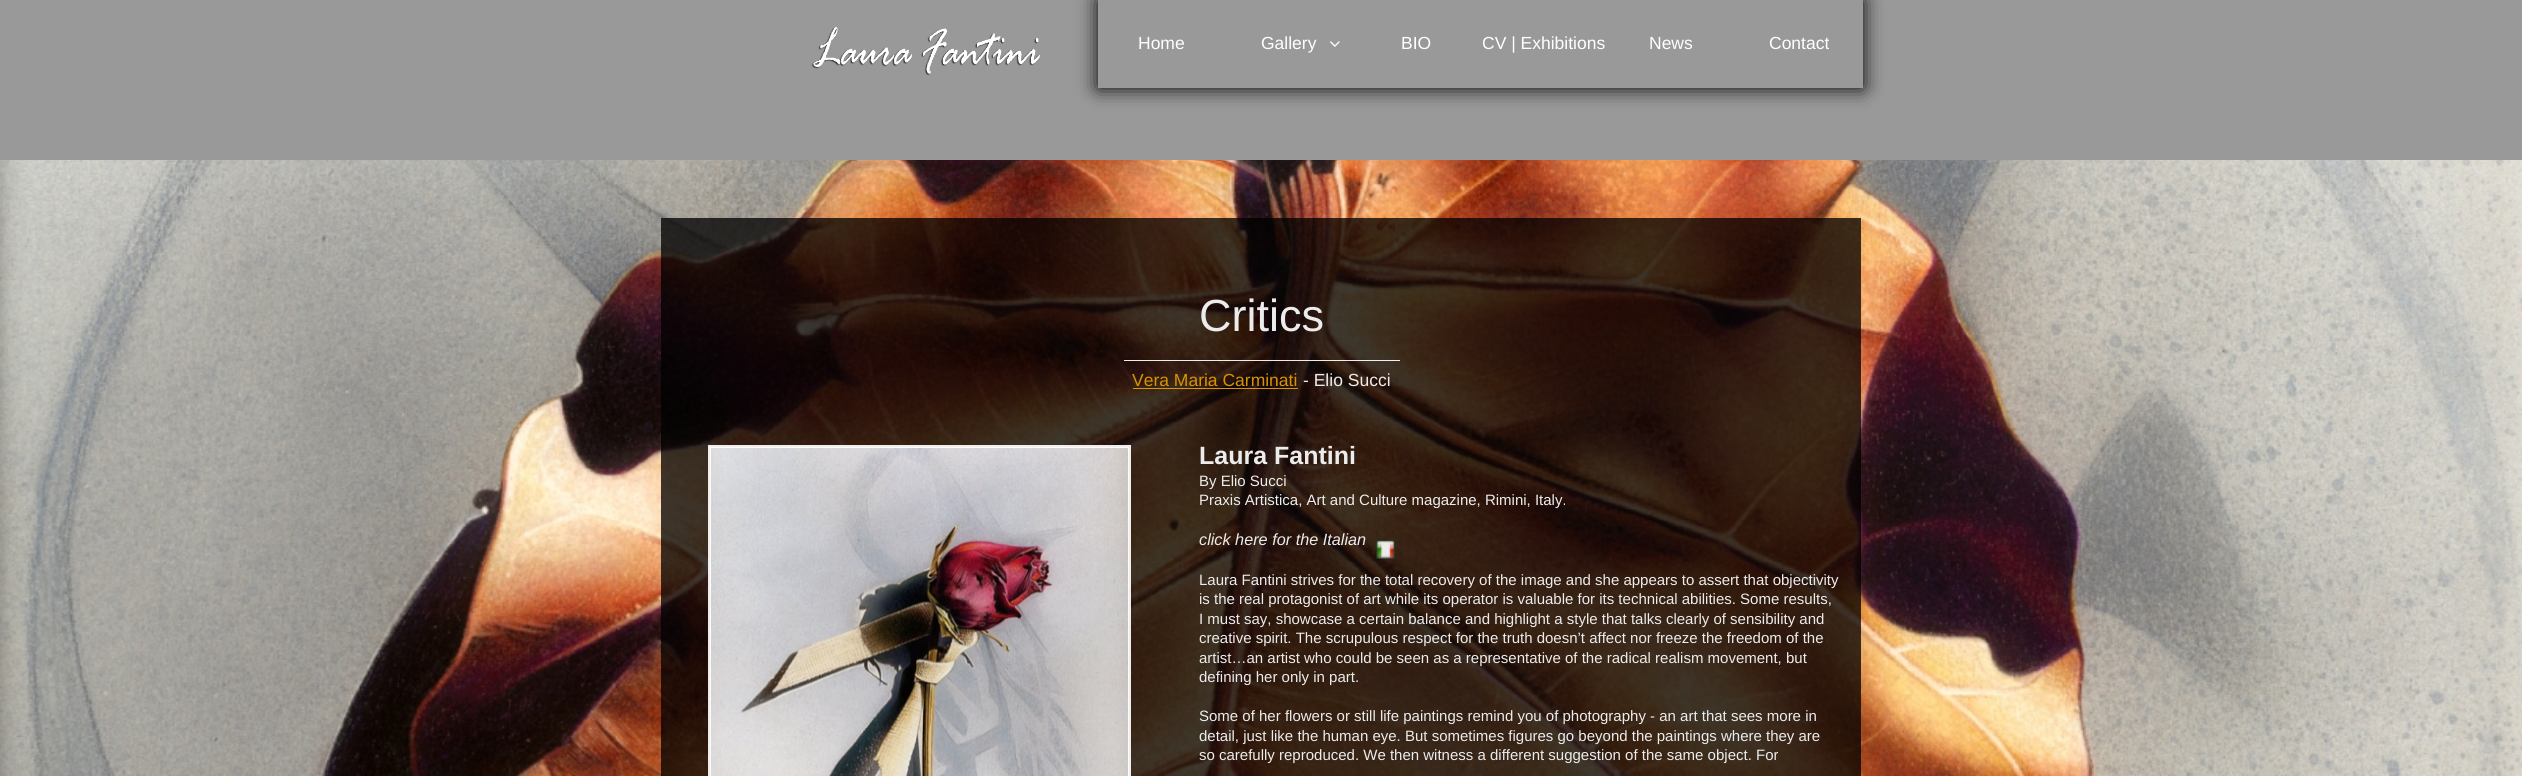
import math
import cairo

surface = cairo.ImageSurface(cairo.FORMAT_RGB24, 2522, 776)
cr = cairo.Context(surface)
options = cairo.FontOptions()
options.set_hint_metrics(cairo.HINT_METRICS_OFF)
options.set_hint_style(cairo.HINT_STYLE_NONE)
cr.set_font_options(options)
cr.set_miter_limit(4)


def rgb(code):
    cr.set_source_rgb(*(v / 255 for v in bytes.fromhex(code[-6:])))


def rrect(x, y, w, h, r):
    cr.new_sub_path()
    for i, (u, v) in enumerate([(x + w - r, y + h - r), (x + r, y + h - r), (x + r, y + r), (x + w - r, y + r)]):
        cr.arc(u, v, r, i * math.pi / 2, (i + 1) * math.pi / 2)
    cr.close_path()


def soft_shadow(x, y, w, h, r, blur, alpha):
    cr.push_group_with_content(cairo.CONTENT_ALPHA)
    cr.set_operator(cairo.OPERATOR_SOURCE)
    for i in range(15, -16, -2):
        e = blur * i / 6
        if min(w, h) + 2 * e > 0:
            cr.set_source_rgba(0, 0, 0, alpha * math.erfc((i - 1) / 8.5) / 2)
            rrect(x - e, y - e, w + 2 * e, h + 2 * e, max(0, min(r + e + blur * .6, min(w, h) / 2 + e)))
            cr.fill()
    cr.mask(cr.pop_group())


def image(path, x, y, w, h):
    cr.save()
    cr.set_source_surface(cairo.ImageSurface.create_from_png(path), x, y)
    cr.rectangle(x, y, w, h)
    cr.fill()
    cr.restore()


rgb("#999999")
cr.paint()
image("img/1.png", 811, 27, 229, 49)
cr.save()
cr.set_fill_rule(cairo.FILL_RULE_EVEN_ODD)
cr.new_path()
cr.move_to(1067, 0)
cr.line_to(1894, 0)
cr.line_to(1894, 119)
cr.line_to(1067, 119)
cr.close_path()
cr.move_to(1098, 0)
cr.line_to(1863, 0)
cr.line_to(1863, 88)
cr.line_to(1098, 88)
cr.close_path()
cr.clip()
rgb("#000000")
soft_shadow(1098, 0, 765, 88, 0, 10, 1)
cr.restore()
image("img/2.png", 1330, 41, 10, 6)
image("img/3.png", 0, 160, 2522, 616)
cr.set_source_rgba(0, 0, 0, 0.76)
cr.rectangle(661, 218, 1200, 558)
cr.fill()
cr.set_source_rgba(1, 1, 1, 0.92)
cr.rectangle(1124, 360, 276, 1)
cr.fill()
image("img/4.png", 710, 447, 419, 329)
cr.rectangle(709.5, 446.5, 420, 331)
cr.set_line_width(3)
cr.stroke()
cr.set_source_rgba(0.91, 0.62, 0, 0.92)
cr.rectangle(1133, 388, 165, 1)
cr.fill()
image("img/5.png", 1376, 540, 19, 19)
cr.select_font_face("Liberation Sans")
cr.set_font_size(17.5)
rgb("#ffffff")
for x, y, s in [
    (1138, 49, "Home"),
    (1261, 49, "Gallery"),
    (1401, 49, "BIO"),
    (1482, 49, "CV | Exhibitions"),
    (1649, 49, "News"),
    (1769, 49, "Contact"),
]:
    cr.move_to(x, y)
    cr.show_text(s)
cr.set_font_size(45)
rgb("#edecec")
cr.move_to(1199, 331)
cr.show_text("Critics")
cr.select_font_face("Liberation Sans", cairo.FONT_SLANT_NORMAL, cairo.FONT_WEIGHT_BOLD)
cr.set_font_size(25)
cr.move_to(1199, 464)
cr.show_text("Laura Fantini")
cr.select_font_face("Liberation Sans")
cr.set_font_size(15)
cr.move_to(1199, 486)
cr.show_text("By Elio Succi")
cr.move_to(1199, 505)
cr.show_text("Praxis Artistica, Art and Culture magazine, Rimini, Italy.")
cr.select_font_face("Liberation Sans", cairo.FONT_SLANT_ITALIC)
cr.set_font_size(16.25)
cr.move_to(1199, 545)
cr.show_text("click here for the Italian")
cr.select_font_face("Liberation Sans")
cr.set_font_size(15)
for x, y, s in [
    (1199, 585, "Laura Fantini strives for the total recovery of the image and she appears to assert that objectivity"),
    (1199, 604, "is the real protagonist of art while its operator is valuable for its technical abilities. Some results,"),
    (1199, 624, "I must say, showcase a certain balance and highlight a style that talks clearly of sensibility and"),
    (1199, 643, "creative spirit. The scrupulous respect for the truth doesn’t affect nor freeze the freedom of the"),
    (1199, 663, "artist…an artist who could be seen as a representative of the radical realism movement, but"),
    (1199, 682, "defining her only in part."),
    (1199, 721, "Some of her flowers or still life paintings remind you of photography - an art that sees more in"),
    (1199, 741, "detail, just like the human eye. But sometimes figures go beyond the paintings where they are"),
    (1199, 760, "so carefully reproduced. We then witness a different suggestion of the same object. For"),
]:
    cr.move_to(x, y)
    cr.show_text(s)
cr.set_font_size(17.5)
rgb("#d99301")
cr.move_to(1132, 386)
cr.show_text("Vera Maria Carminati")
rgb("#edecec")
cr.move_to(1303, 386)
cr.show_text("- Elio Succi")
surface.write_to_png("page.png")
